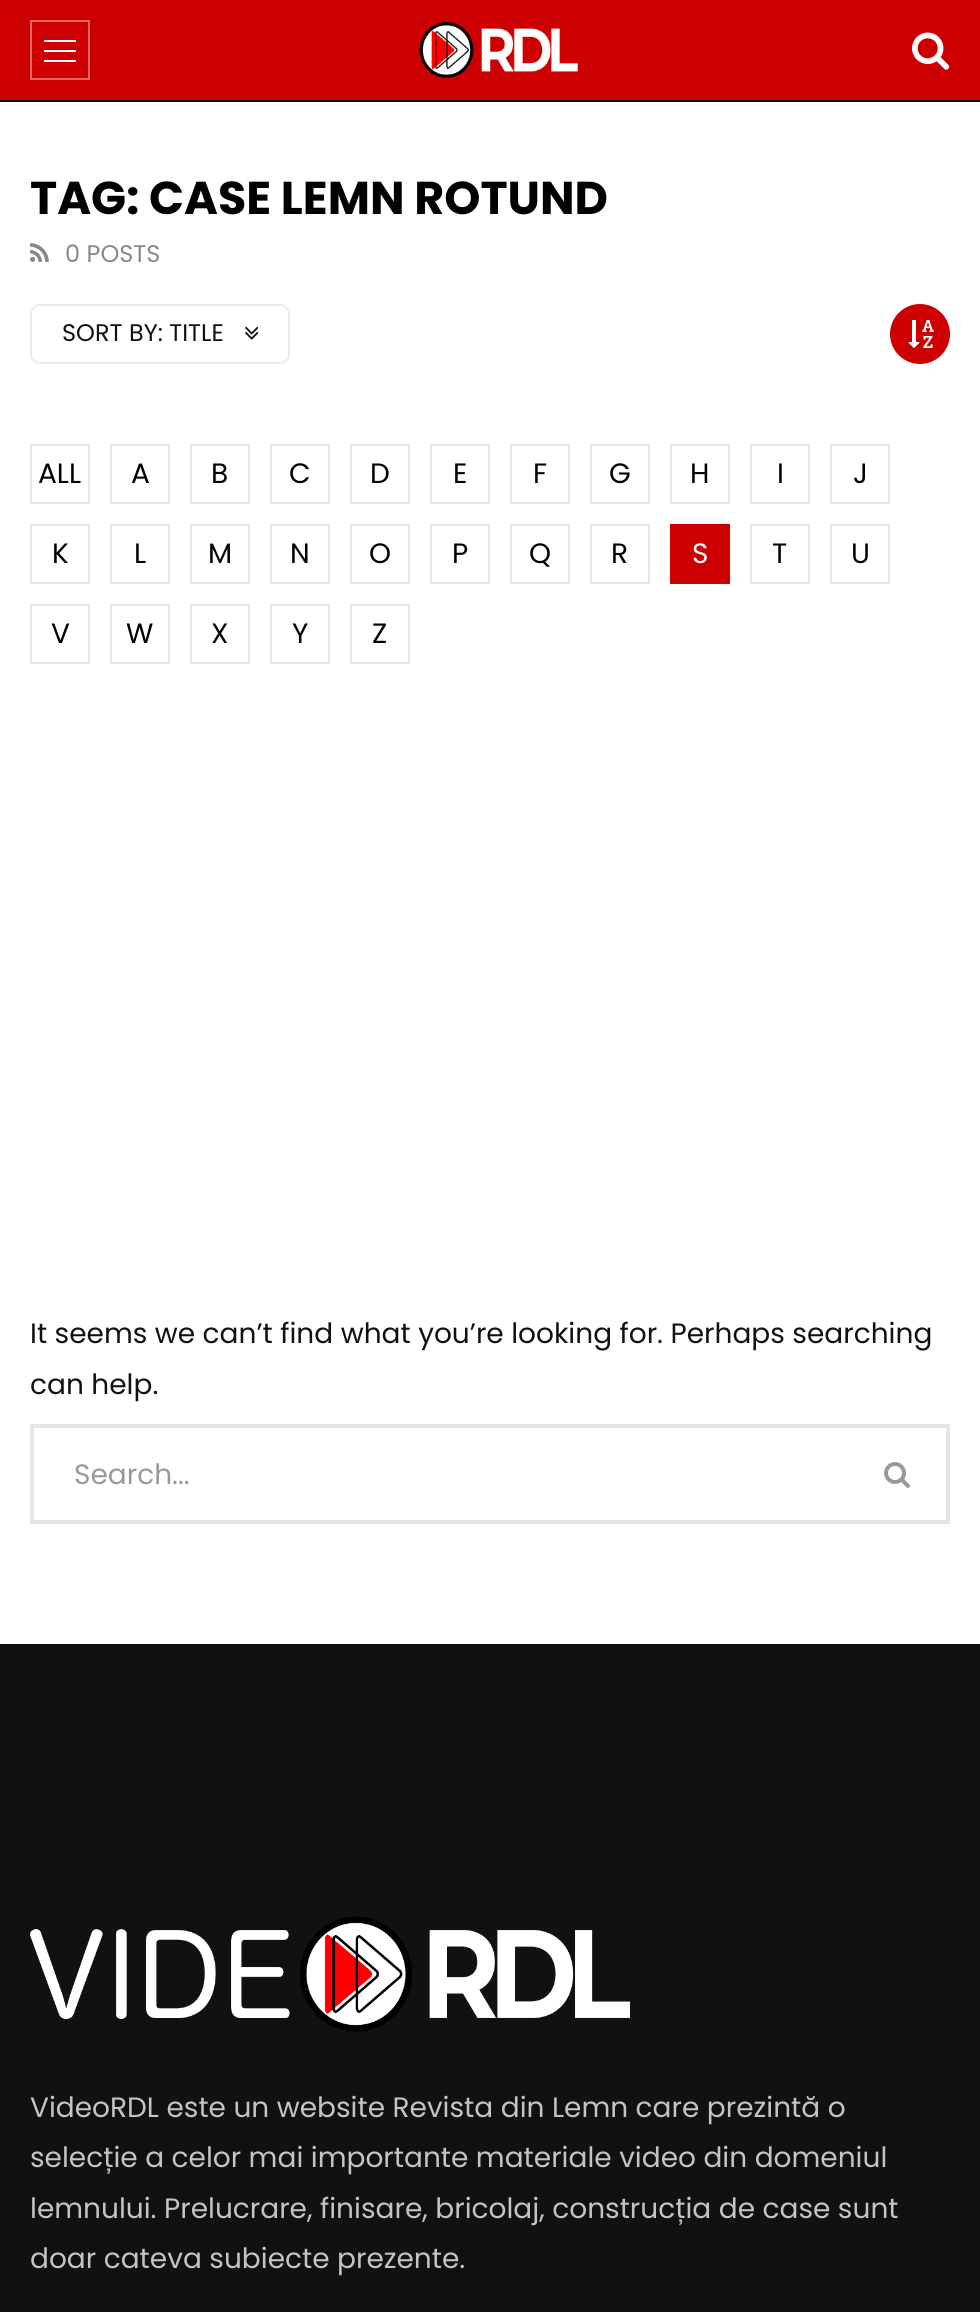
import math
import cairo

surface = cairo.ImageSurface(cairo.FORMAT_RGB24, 980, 2312)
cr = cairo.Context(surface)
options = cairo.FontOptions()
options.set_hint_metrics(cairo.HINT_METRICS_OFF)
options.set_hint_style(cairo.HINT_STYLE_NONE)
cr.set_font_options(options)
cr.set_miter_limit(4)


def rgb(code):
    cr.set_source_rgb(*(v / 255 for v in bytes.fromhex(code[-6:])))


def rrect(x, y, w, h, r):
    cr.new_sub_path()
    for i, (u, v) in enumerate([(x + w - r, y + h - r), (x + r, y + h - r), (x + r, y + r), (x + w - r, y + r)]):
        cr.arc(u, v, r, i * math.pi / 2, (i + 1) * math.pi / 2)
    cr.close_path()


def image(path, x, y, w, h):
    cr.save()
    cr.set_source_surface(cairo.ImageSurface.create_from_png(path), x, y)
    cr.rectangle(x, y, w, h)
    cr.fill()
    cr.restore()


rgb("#ffffff")
cr.paint()
rgb("#cc0000")
cr.rectangle(0, 0, 980, 100)
cr.fill()
cr.rectangle(31, 21, 58, 58)
rgb("#e06666")
cr.stroke()
for x, y, w, h, color in [
    (44, 40, 32, 2, "#ffffff"),
    (44, 50, 32, 2, "#ffffff"),
    (44, 60, 32, 2, "#ffffff"),
]:
    rgb(color)
    cr.rectangle(x, y, w, h)
    cr.fill()
image("img/1.png", 419, 22, 159, 56)
image("img/2.png", 912, 32, 38, 38)
rgb("#000000")
cr.rectangle(0, 100, 980, 2)
cr.fill()
image("img/3.png", 30, 243, 19, 19)
rrect(31, 305, 258, 58, 9)
rgb("#eaeaea")
cr.stroke()
image("img/4.png", 245, 326, 13, 14)
rgb("#cc0000")
cr.arc(920, 334, 30, 0, 2 * math.pi)
cr.fill()
image("img/5.png", 908, 320, 26, 28)
cr.rectangle(31, 445, 58, 58)
rgb("#e6e6e6")
cr.stroke()
cr.rectangle(111, 445, 58, 58)
cr.stroke()
cr.rectangle(191, 445, 58, 58)
cr.stroke()
cr.rectangle(271, 445, 58, 58)
cr.stroke()
cr.rectangle(351, 445, 58, 58)
cr.stroke()
cr.rectangle(431, 445, 58, 58)
cr.stroke()
cr.rectangle(511, 445, 58, 58)
cr.stroke()
cr.rectangle(591, 445, 58, 58)
cr.stroke()
cr.rectangle(671, 445, 58, 58)
cr.stroke()
cr.rectangle(751, 445, 58, 58)
cr.stroke()
cr.rectangle(831, 445, 58, 58)
cr.stroke()
cr.rectangle(31, 525, 58, 58)
cr.stroke()
cr.rectangle(111, 525, 58, 58)
cr.stroke()
cr.rectangle(191, 525, 58, 58)
cr.stroke()
cr.rectangle(271, 525, 58, 58)
cr.stroke()
cr.rectangle(351, 525, 58, 58)
cr.stroke()
cr.rectangle(431, 525, 58, 58)
cr.stroke()
cr.rectangle(511, 525, 58, 58)
cr.stroke()
cr.rectangle(591, 525, 58, 58)
cr.stroke()
rgb("#cc0000")
cr.rectangle(670, 524, 60, 60)
cr.fill()
cr.rectangle(751, 525, 58, 58)
rgb("#e6e6e6")
cr.stroke()
cr.rectangle(831, 525, 58, 58)
cr.stroke()
cr.rectangle(31, 605, 58, 58)
cr.stroke()
cr.rectangle(111, 605, 58, 58)
cr.stroke()
cr.rectangle(191, 605, 58, 58)
cr.stroke()
cr.rectangle(271, 605, 58, 58)
cr.stroke()
cr.rectangle(351, 605, 58, 58)
cr.stroke()
cr.rectangle(32, 1426, 916, 96)
rgb("#e5e5e5")
cr.set_line_width(4)
cr.stroke()
image("img/6.png", 884, 1462, 26, 26)
rgb("#111111")
cr.rectangle(0, 1644, 980, 668)
cr.fill()
image("img/7.png", 30, 1916, 600, 116)
cr.select_font_face("Poppins", cairo.FONT_SLANT_NORMAL, cairo.FONT_WEIGHT_BOLD)
cr.set_font_size(46)
rgb("#000000")
cr.move_to(30, 214)
cr.show_text("TAG: CASE LEMN ROTUND")
cr.select_font_face("Poppins")
cr.set_font_size(24)
rgb("#888888")
cr.move_to(65, 262)
cr.show_text("0 POSTS")
rgb("#111111")
cr.move_to(62, 341)
cr.show_text("SORT BY: TITLE")
cr.set_font_size(28)
rgb("#000000")
for x, y, s in [
    (38, 483, "ALL"),
    (131, 483, "A"),
    (211, 483, "B"),
    (289, 483, "C"),
    (370, 483, "D"),
    (453, 483, "E"),
    (533, 483, "F"),
    (609, 483, "G"),
    (690, 483, "H"),
    (777, 483, "I"),
    (853, 483, "J"),
    (52, 563, "K"),
    (134, 563, "L"),
    (208, 563, "M"),
    (290, 563, "N"),
    (369, 563, "O"),
    (452, 563, "P"),
    (529, 563, "Q"),
    (611, 563, "R"),
]:
    cr.move_to(x, y)
    cr.show_text(s)
rgb("#ffffff")
cr.move_to(692, 563)
cr.show_text("S")
rgb("#000000")
for x, y, s in [
    (772, 563, "T"),
    (851, 563, "U"),
    (51, 643, "V"),
    (126, 643, "W"),
    (211, 643, "X"),
    (292, 643, "Y"),
    (372, 643, "Z"),
]:
    cr.move_to(x, y)
    cr.show_text(s)
rgb("#111111")
cr.move_to(30, 1343)
cr.show_text("It seems we can’t find what you’re looking for. Perhaps searching")
cr.move_to(30, 1394)
cr.show_text("can help.")
rgb("#999999")
cr.move_to(74, 1484)
cr.show_text("Search...")
rgb("#c4c4c4")
for x, y, s in [
    (30, 2117, "VideoRDL este un website Revista din Lemn care prezintă o"),
    (30, 2167, "selecție a celor mai importante materiale video din domeniul"),
    (30, 2218, "lemnului. Prelucrare, finisare, bricolaj, construcția de case sunt"),
    (30, 2268, "doar cateva subiecte prezente."),
]:
    cr.move_to(x, y)
    cr.show_text(s)
surface.write_to_png("page.png")
